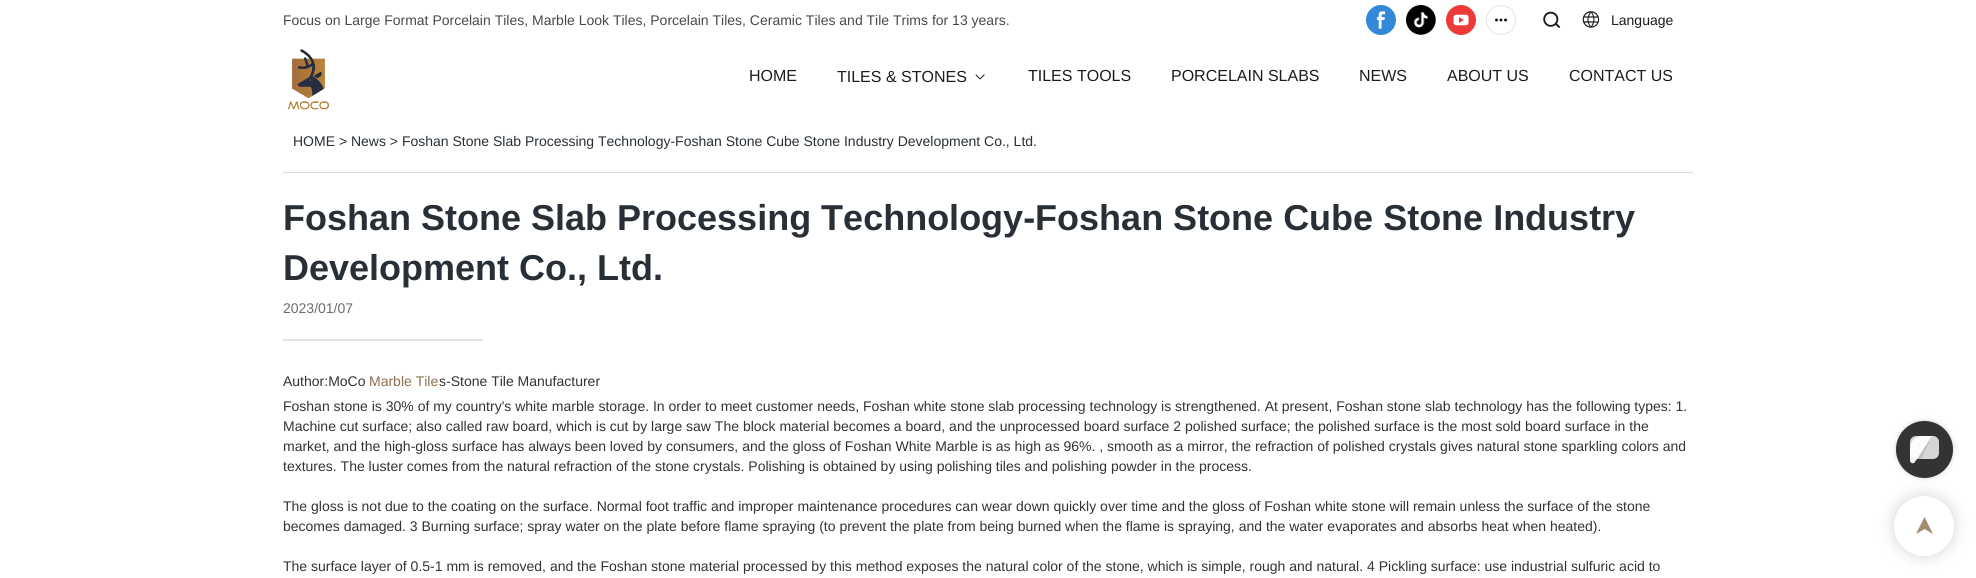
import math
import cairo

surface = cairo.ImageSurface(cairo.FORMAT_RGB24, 1976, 578)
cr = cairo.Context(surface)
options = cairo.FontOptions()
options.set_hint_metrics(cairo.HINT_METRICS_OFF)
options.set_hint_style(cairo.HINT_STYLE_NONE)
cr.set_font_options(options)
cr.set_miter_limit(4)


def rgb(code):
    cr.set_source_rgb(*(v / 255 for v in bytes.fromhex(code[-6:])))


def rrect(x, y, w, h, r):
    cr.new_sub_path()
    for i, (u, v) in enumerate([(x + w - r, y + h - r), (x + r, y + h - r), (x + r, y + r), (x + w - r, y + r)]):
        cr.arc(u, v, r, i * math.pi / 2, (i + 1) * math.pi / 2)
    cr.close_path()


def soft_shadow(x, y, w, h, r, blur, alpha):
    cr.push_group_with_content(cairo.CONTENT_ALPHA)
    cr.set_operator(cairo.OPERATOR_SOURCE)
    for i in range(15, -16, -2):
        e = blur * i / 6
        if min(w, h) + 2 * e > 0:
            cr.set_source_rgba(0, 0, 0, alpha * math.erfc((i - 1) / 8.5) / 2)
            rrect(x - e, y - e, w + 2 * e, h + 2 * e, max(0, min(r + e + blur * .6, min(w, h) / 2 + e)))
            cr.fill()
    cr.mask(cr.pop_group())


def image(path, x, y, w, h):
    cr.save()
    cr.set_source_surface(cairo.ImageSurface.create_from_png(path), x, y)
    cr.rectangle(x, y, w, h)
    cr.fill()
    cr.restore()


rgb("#ffffff")
cr.paint()
image("img/1.png", 1366, 5, 30, 30)
image("img/2.png", 1406, 5, 30, 30)
image("img/3.png", 1446, 5, 30, 30)
image("img/4.png", 1486, 5, 30, 30)
image("img/5.png", 1543, 11, 18, 17)
image("img/6.png", 1582, 11, 18, 17)
image("img/7.png", 287, 49, 43, 61)
image("img/8.png", 975, 74, 10, 6)
rgb("#d8d8d8")
cr.rectangle(283, 172, 1410, 1)
cr.fill()
rgb("#e6e6e6")
cr.rectangle(283, 339, 200, 2)
cr.fill()
rgb("#000000")
soft_shadow(1896, 421, 57, 57, 28.5, 2, 0.14)
soft_shadow(1896, 421, 57, 57, 28.5, 4, 0.06)
rgb("#959595")
soft_shadow(1894, 496, 60, 60, 30, 7.5, 0.4)
rgb("#333333")
cr.arc(1924.5, 449.5, 28.5, 0, 2 * math.pi)
cr.fill()
image("img/9.png", 1910, 436, 29, 28)
rgb("#ffffff")
cr.arc(1924, 526, 30, 0, 2 * math.pi)
cr.fill()
rgb("#a28c71")
cr.new_path()
cr.move_to(1933, 534)
cr.line_to(1924.5, 529)
cr.line_to(1916, 534)
cr.line_to(1924.5, 517)
cr.close_path()
cr.fill()
cr.select_font_face("Liberation Sans")
cr.set_font_size(14)
rgb("#4a4949")
cr.move_to(283, 25)
cr.show_text("Focus on Large Format Porcelain Tiles, Marble Look Tiles, Porcelain Tiles, Ceramic Tiles and Tile Trims for 13 years.")
rgb("#1d1b1c")
cr.move_to(1611, 25)
cr.show_text("Language")
cr.set_font_size(16)
for x, y, s in [
    (749, 81, "HOME"),
    (837, 82, "TILES & STONES"),
    (1028, 81, "TILES TOOLS"),
    (1171, 81, "PORCELAIN SLABS"),
    (1359, 81, "NEWS"),
    (1447, 81, "ABOUT US"),
    (1569, 81, "CONTACT US"),
]:
    cr.move_to(x, y)
    cr.show_text(s)
cr.set_font_size(14)
rgb("#282f36")
cr.move_to(293, 146)
cr.show_text("HOME > News > Foshan Stone Slab Processing Technology-Foshan Stone Cube Stone Industry Development Co., Ltd.")
cr.select_font_face("Liberation Sans", cairo.FONT_SLANT_NORMAL, cairo.FONT_WEIGHT_BOLD)
cr.set_font_size(36)
cr.move_to(283, 230)
cr.show_text("Foshan Stone Slab Processing Technology-Foshan Stone Cube Stone Industry")
cr.move_to(283, 280)
cr.show_text("Development Co., Ltd.")
cr.select_font_face("Liberation Sans")
cr.set_font_size(14)
rgb("#696d72")
cr.move_to(283, 313)
cr.show_text("2023/01/07")
rgb("#333333")
cr.move_to(283, 386)
cr.show_text("Author:MoCo")
rgb("#8b6f4e")
cr.move_to(369, 386)
cr.show_text("Marble Tile")
rgb("#333333")
for x, y, s in [
    (439, 386, "s-Stone Tile Manufacturer"),
    (283, 411, "Foshan stone is 30% of my country's white marble storage. In order to meet customer needs, Foshan white stone slab processing technology is strengthened. At present, Foshan stone slab technology has the following types: 1."),
    (283, 431, "Machine cut surface; also called raw board, which is cut by large saw The block material becomes a board, and the unprocessed board surface 2 polished surface; the polished surface is the most sold board surface in the"),
    (283, 451, "market, and the high-gloss surface has always been loved by consumers, and the gloss of Foshan White Marble is as high as 96%. , smooth as a mirror, the refraction of polished crystals gives natural stone sparkling colors and"),
    (283, 471, "textures. The luster comes from the natural refraction of the stone crystals. Polishing is obtained by using polishing tiles and polishing powder in the process."),
    (283, 511, "The gloss is not due to the coating on the surface. Normal foot traffic and improper maintenance procedures can wear down quickly over time and the gloss of Foshan white stone will remain unless the surface of the stone"),
    (283, 531, "becomes damaged. 3 Burning surface; spray water on the plate before flame spraying (to prevent the plate from being burned when the flame is spraying, and the water evaporates and absorbs heat when heated)."),
    (283, 571, "The surface layer of 0.5-1 mm is removed, and the Foshan stone material processed by this method exposes the natural color of the stone, which is simple, rough and natural. 4 Pickling surface: use industrial sulfuric acid to"),
]:
    cr.move_to(x, y)
    cr.show_text(s)
surface.write_to_png("page.png")
